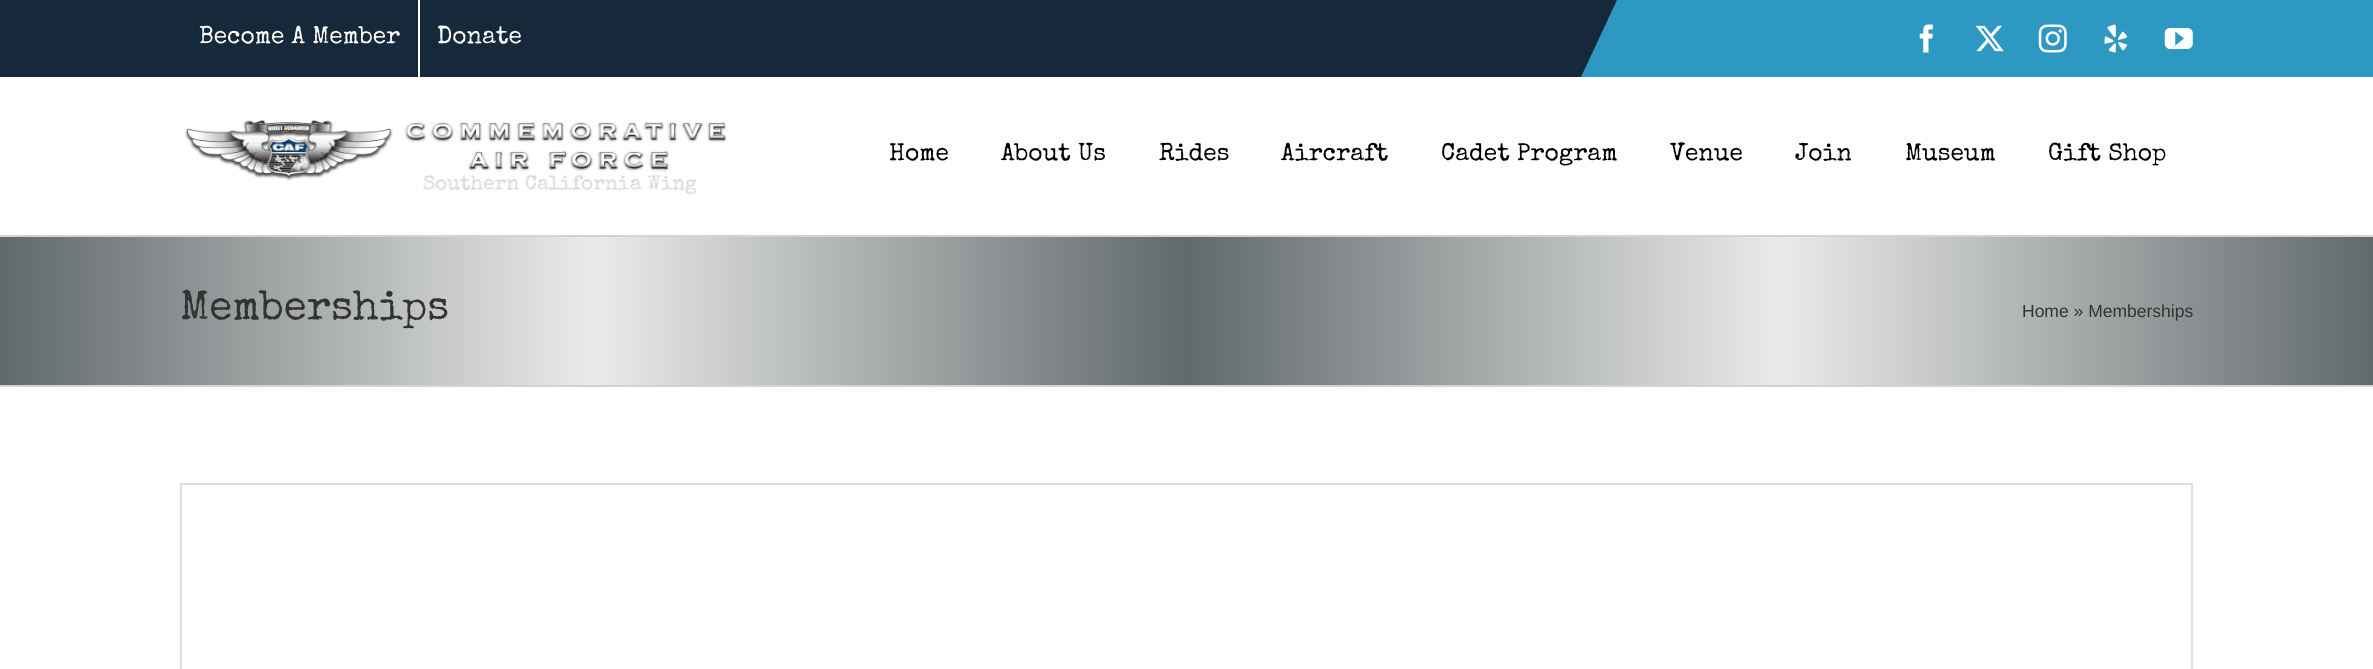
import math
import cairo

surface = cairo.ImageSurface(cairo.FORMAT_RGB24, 2373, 669)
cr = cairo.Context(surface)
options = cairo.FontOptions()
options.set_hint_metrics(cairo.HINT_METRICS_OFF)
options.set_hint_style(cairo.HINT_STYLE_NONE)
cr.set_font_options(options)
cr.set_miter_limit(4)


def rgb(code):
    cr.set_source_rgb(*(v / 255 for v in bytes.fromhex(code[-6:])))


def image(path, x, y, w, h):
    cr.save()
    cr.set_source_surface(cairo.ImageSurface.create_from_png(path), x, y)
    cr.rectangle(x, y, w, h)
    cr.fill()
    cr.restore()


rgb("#ffffff")
cr.paint()
rgb("#15293a")
cr.rectangle(0, 0, 1617, 77)
cr.fill()
rgb("#ffffff")
cr.rectangle(418, 0, 2, 77)
cr.fill()
rgb("#2d98c1")
cr.new_path()
cr.move_to(1617, 0)
cr.line_to(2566, 0)
cr.line_to(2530, 77)
cr.line_to(1581, 77)
cr.close_path()
cr.fill()
image("img/1.png", 1919, 24, 14, 29)
image("img/2.png", 1975, 25, 29, 27)
image("img/3.png", 2038, 24, 29, 29)
image("img/4.png", 2104, 24, 24, 29)
image("img/5.png", 2164, 28, 29, 21)
image("img/6.png", 184, 120, 543, 75)
gradient = cairo.LinearGradient(0, 311, 2373, 311)
gradient.add_color_stop_rgba(0, 0.38, 0.412, 0.42, 1)
gradient.add_color_stop_rgba(0.25, 0.918, 0.918, 0.918, 1)
gradient.add_color_stop_rgba(0.5, 0.38, 0.412, 0.42, 1)
gradient.add_color_stop_rgba(0.75, 0.918, 0.918, 0.918, 1)
gradient.add_color_stop_rgba(1, 0.38, 0.412, 0.42, 1)
cr.set_source(gradient)
cr.rectangle(0, 237, 2373, 148)
cr.fill()
for x, y, w, h, color in [
    (0, 235, 2373, 2, "#d2d3d4"),
    (0, 385, 2373, 2, "#d2d3d4"),
    (180, 483, 2013, 2, "#e0dede"),
    (2191, 483, 2, 186, "#e0dede"),
    (180, 483, 2, 186, "#e0dede"),
]:
    rgb(color)
    cr.rectangle(x, y, w, h)
    cr.fill()
cr.select_font_face("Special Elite")
cr.set_font_size(24.5)
rgb("#ffffff")
cr.move_to(199, 43)
cr.show_text("Become A Member")
cr.move_to(437, 43)
cr.show_text("Donate")
rgb("#000000")
for x, y, s in [
    (889, 160, "Home"),
    (1001, 160, "About Us"),
    (1159, 160, "Rides"),
    (1281, 160, "Aircraft"),
    (1441, 160, "Cadet Program"),
    (1670, 160, "Venue"),
    (1795, 160, "Join"),
    (1905, 160, "Museum"),
    (2048, 160, "Gift Shop"),
]:
    cr.move_to(x, y)
    cr.show_text(s)
cr.set_font_size(42)
rgb("#333333")
cr.move_to(180, 319)
cr.show_text("Memberships")
cr.select_font_face("Liberation Sans")
cr.set_font_size(17.5)
cr.move_to(2022, 317)
cr.show_text("Home » Memberships")
surface.write_to_png("page.png")
